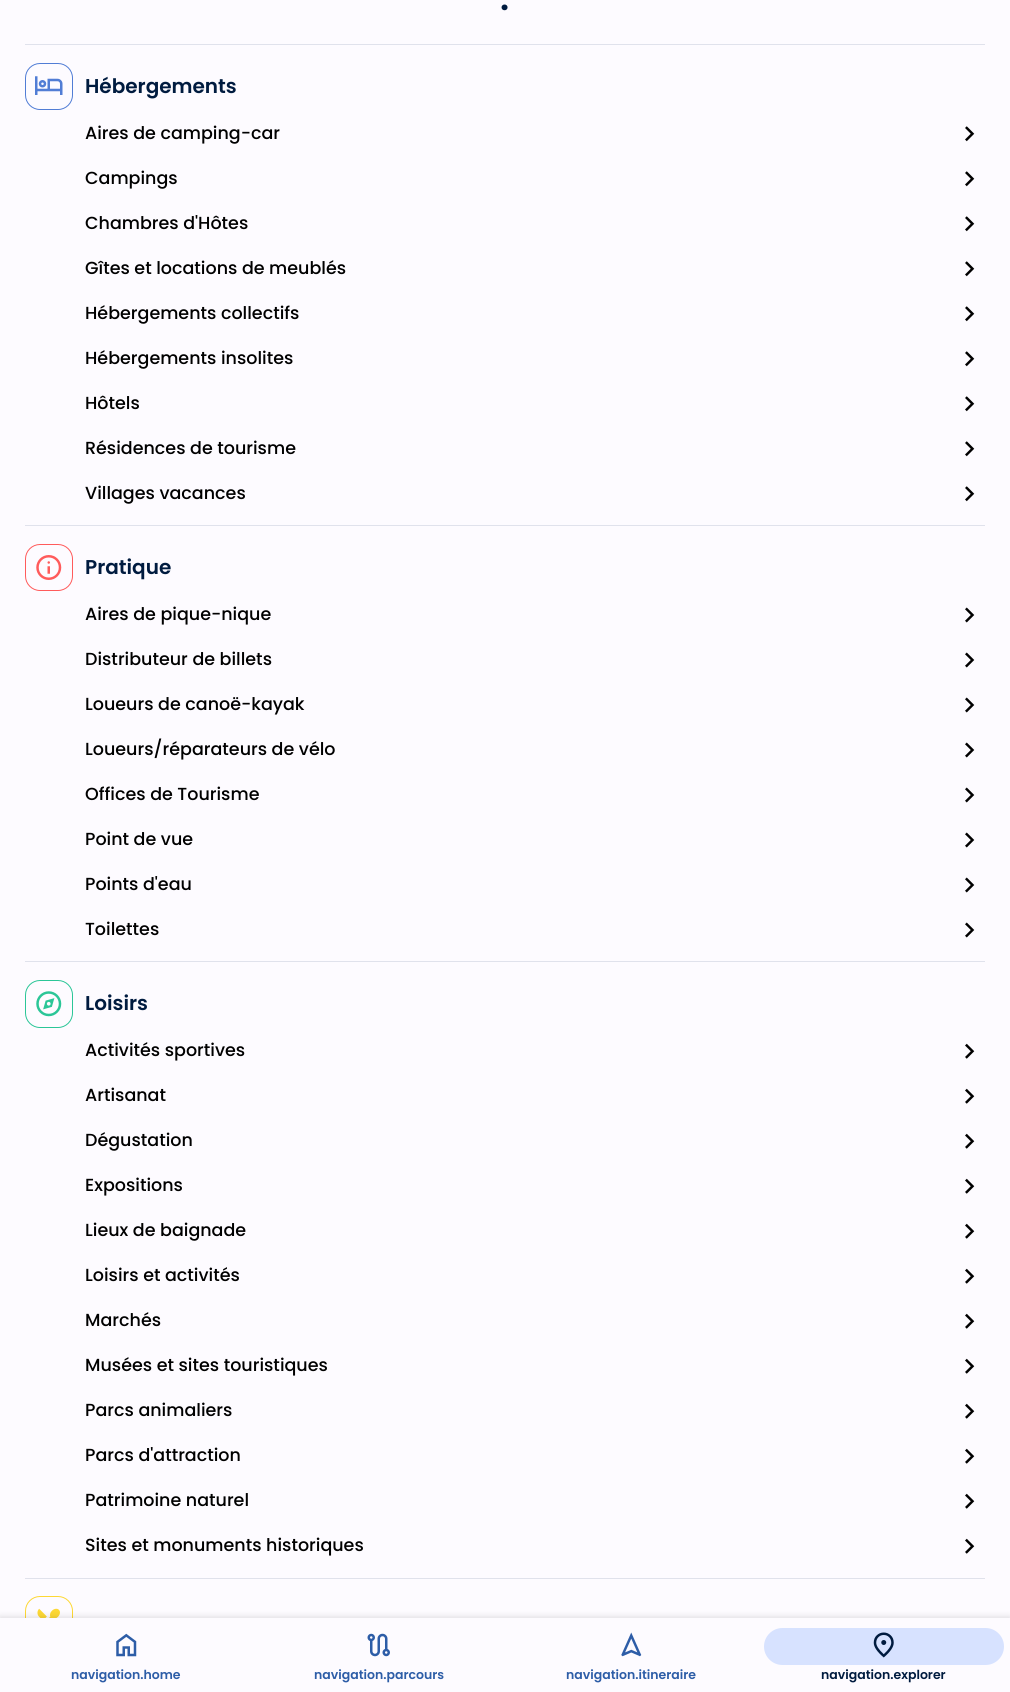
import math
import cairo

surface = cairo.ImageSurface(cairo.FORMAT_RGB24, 1010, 1692)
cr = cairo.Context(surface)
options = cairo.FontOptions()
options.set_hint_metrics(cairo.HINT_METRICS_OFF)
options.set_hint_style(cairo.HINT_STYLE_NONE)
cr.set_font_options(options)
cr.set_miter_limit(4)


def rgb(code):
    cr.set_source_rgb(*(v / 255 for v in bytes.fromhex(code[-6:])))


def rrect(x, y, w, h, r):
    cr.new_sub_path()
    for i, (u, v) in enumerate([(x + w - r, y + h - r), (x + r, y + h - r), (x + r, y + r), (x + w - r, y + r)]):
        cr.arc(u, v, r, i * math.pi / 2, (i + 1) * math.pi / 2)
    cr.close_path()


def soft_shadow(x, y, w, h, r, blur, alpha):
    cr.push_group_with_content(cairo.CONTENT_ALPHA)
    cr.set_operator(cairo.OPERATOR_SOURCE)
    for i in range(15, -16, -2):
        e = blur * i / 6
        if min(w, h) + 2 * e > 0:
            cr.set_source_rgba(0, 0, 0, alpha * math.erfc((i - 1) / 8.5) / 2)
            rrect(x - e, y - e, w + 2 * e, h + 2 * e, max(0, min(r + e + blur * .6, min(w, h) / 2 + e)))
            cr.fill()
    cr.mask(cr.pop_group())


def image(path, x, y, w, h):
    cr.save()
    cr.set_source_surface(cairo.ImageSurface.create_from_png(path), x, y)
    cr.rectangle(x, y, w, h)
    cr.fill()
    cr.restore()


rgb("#fdfbff")
cr.paint()
rgb("#e0e2ec")
cr.rectangle(25, 44, 960, 1)
cr.fill()
rrect(25.5, 63.5, 47, 46, 14.5)
rgb("#517dd5")
cr.set_line_width(1)
cr.stroke()
image("img/1.png", 35, 76, 28, 19)
image("img/2.png", 965, 126, 10, 16)
image("img/2.png", 965, 171, 10, 16)
image("img/2.png", 965, 216, 10, 16)
image("img/2.png", 965, 261, 10, 16)
image("img/2.png", 965, 306, 10, 16)
image("img/2.png", 965, 351, 10, 16)
image("img/2.png", 965, 396, 10, 16)
image("img/2.png", 965, 441, 10, 16)
image("img/2.png", 965, 486, 10, 16)
rgb("#e0e2ec")
cr.rectangle(25, 525, 960, 1)
cr.fill()
rrect(25.5, 544.5, 47, 46, 14.5)
rgb("#ff5b5b")
cr.stroke()
image("img/3.png", 36, 555, 26, 25)
image("img/4.png", 965, 607, 10, 16)
image("img/4.png", 965, 652, 10, 16)
image("img/4.png", 965, 697, 10, 16)
image("img/4.png", 965, 742, 10, 16)
image("img/4.png", 965, 787, 10, 16)
image("img/4.png", 965, 832, 10, 16)
image("img/4.png", 965, 877, 10, 16)
image("img/4.png", 965, 922, 10, 16)
rgb("#e0e2ec")
cr.rectangle(25, 961, 960, 1)
cr.fill()
rrect(25.5, 980.5, 47, 47, 14.5)
rgb("#2bc697")
cr.stroke()
image("img/5.png", 36, 991, 26, 26)
image("img/6.png", 965, 1043, 10, 16)
image("img/6.png", 965, 1088, 10, 16)
image("img/6.png", 965, 1133, 10, 16)
image("img/6.png", 965, 1178, 10, 16)
image("img/6.png", 965, 1223, 10, 16)
image("img/6.png", 965, 1268, 10, 16)
image("img/6.png", 965, 1313, 10, 16)
image("img/6.png", 965, 1358, 10, 16)
image("img/6.png", 965, 1403, 10, 16)
image("img/6.png", 965, 1448, 10, 16)
image("img/6.png", 965, 1493, 10, 16)
image("img/6.png", 965, 1538, 10, 16)
rgb("#e0e2ec")
cr.rectangle(25, 1578, 960, 1)
cr.fill()
rrect(25.5, 1596.5, 47, 47, 14.5)
rgb("#fdd835")
cr.stroke()
image("img/7.png", 37, 1608, 23, 10)
rgb("#000000")
soft_shadow(0, 1618, 1010, 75, 0, 4, 0.16)
rgb("#fdfbff")
cr.rectangle(0, 1618, 1010, 74)
cr.fill()
image("img/8.png", 116, 1633, 21, 24)
image("img/9.png", 367, 1633, 23, 24)
image("img/10.png", 621, 1632, 21, 25)
rgb("#d7e2ff")
rrect(764, 1628, 240, 37, 18.5)
cr.fill()
image("img/11.png", 873, 1632, 21, 26)
cr.select_font_face("Poppins SemiBold")
cr.set_font_size(35)
rgb("#001b3f")
cr.move_to(500, 10)
cr.show_text(".")
cr.set_font_size(20)
cr.move_to(85, 93)
cr.show_text("Hébergements")
cr.select_font_face("Poppins Medium")
cr.set_font_size(17.5)
rgb("#000000")
for x, y, s in [
    (85, 139, "Aires de camping-car"),
    (85, 184, "Campings"),
    (85, 229, "Chambres d'Hôtes"),
    (85, 274, "Gîtes et locations de meublés"),
    (85, 319, "Hébergements collectifs"),
    (85, 364, "Hébergements insolites"),
    (85, 409, "Hôtels"),
    (85, 454, "Résidences de tourisme"),
    (85, 499, "Villages vacances"),
]:
    cr.move_to(x, y)
    cr.show_text(s)
cr.select_font_face("Poppins SemiBold")
cr.set_font_size(20)
rgb("#001b3f")
cr.move_to(85, 574)
cr.show_text("Pratique")
cr.select_font_face("Poppins Medium")
cr.set_font_size(17.5)
rgb("#000000")
for x, y, s in [
    (85, 620, "Aires de pique-nique"),
    (85, 665, "Distributeur de billets"),
    (85, 710, "Loueurs de canoë-kayak"),
    (85, 755, "Loueurs/réparateurs de vélo"),
    (85, 800, "Offices de Tourisme"),
    (85, 845, "Point de vue"),
    (85, 890, "Points d'eau"),
    (85, 935, "Toilettes"),
]:
    cr.move_to(x, y)
    cr.show_text(s)
cr.select_font_face("Poppins SemiBold")
cr.set_font_size(20)
rgb("#001b3f")
cr.move_to(85, 1010)
cr.show_text("Loisirs")
cr.select_font_face("Poppins Medium")
cr.set_font_size(17.5)
rgb("#000000")
for x, y, s in [
    (85, 1056, "Activités sportives"),
    (85, 1101, "Artisanat"),
    (85, 1146, "Dégustation"),
    (85, 1191, "Expositions"),
    (85, 1236, "Lieux de baignade"),
    (85, 1281, "Loisirs et activités"),
    (85, 1326, "Marchés"),
    (85, 1371, "Musées et sites touristiques"),
    (85, 1416, "Parcs animaliers"),
    (85, 1461, "Parcs d'attraction"),
    (85, 1506, "Patrimoine naturel"),
    (85, 1551, "Sites et monuments historiques"),
]:
    cr.move_to(x, y)
    cr.show_text(s)
cr.select_font_face("Poppins SemiBold")
cr.set_font_size(12.5)
rgb("#2d5da7")
for x, y, s in [
    (71, 1679, "navigation.home"),
    (314, 1679, "navigation.parcours"),
    (566, 1679, "navigation.itineraire"),
]:
    cr.move_to(x, y)
    cr.show_text(s)
rgb("#001b3f")
cr.move_to(821, 1679)
cr.show_text("navigation.explorer")
surface.write_to_png("page.png")
